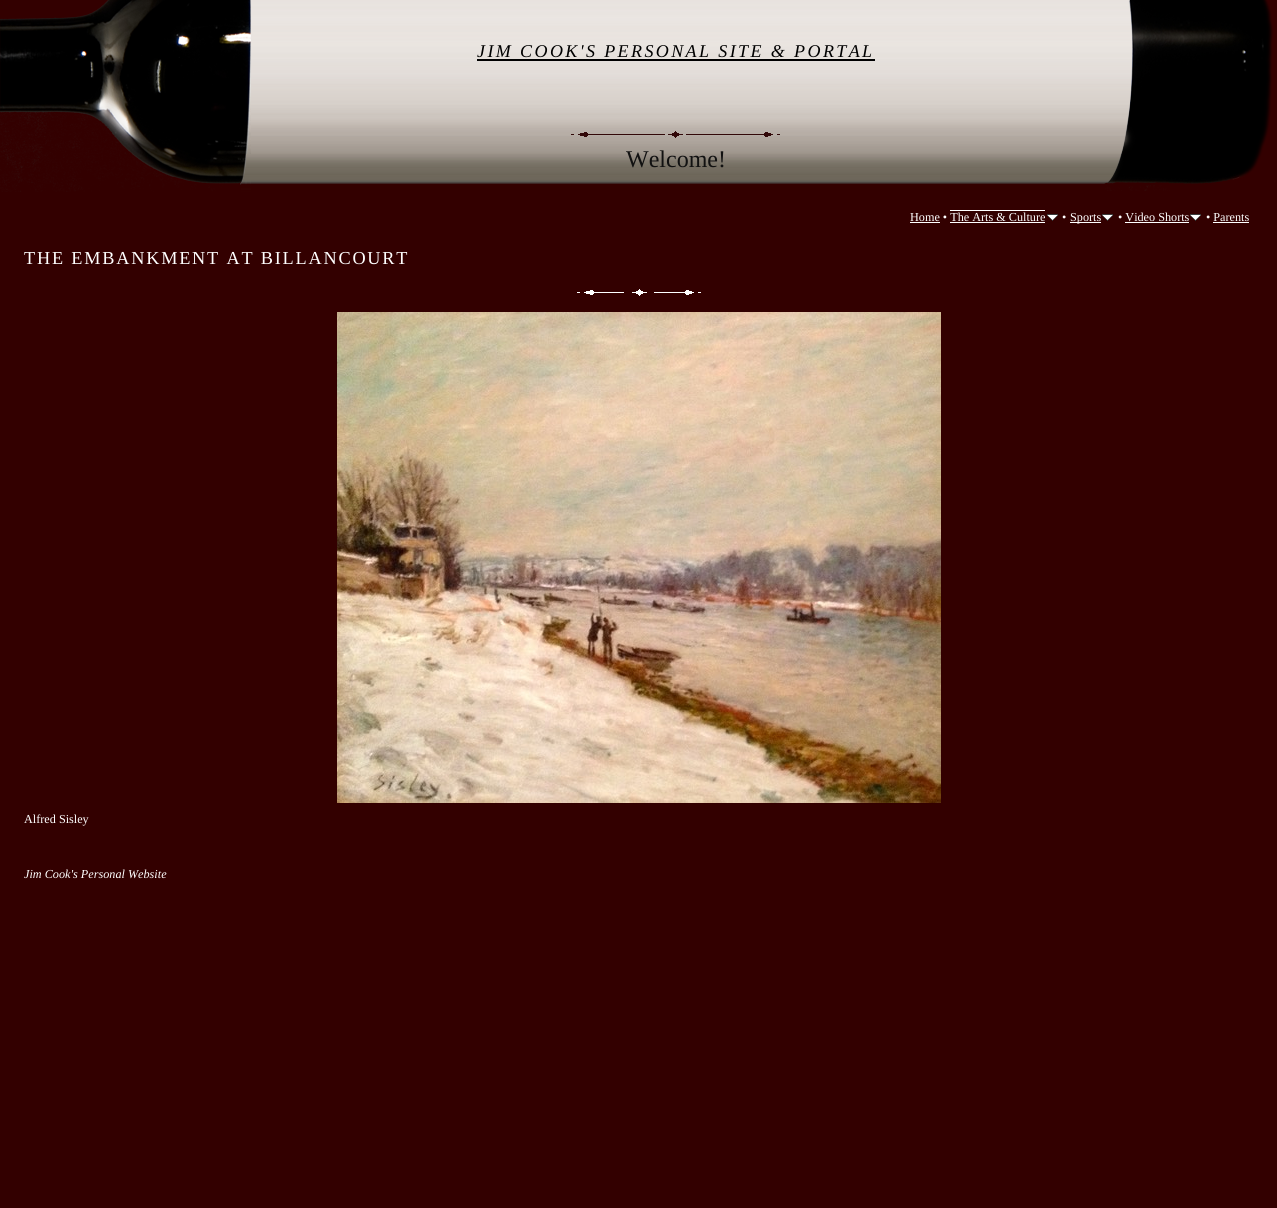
import math
import cairo

surface = cairo.ImageSurface(cairo.FORMAT_RGB24, 1277, 1208)
cr = cairo.Context(surface)
options = cairo.FontOptions()
options.set_hint_metrics(cairo.HINT_METRICS_OFF)
options.set_hint_style(cairo.HINT_STYLE_NONE)
cr.set_font_options(options)
cr.set_miter_limit(4)


def rgb(code):
    cr.set_source_rgb(*(v / 255 for v in bytes.fromhex(code[-6:])))


def tracked(x, y, s, letter, word):
    cr.move_to(x, y)
    for ch in s:
        cr.show_text(ch)
        cr.rel_move_to(letter + word * (ch == ' '), 0)


def image(path, x, y, w, h):
    cr.save()
    cr.set_source_surface(cairo.ImageSurface.create_from_png(path), x, y)
    cr.rectangle(x, y, w, h)
    cr.fill()
    cr.restore()


rgb("#330000")
cr.paint()
image("img/1.png", 251, 0, 853, 184)
image("img/2.png", 0, 0, 251, 192)
image("img/3.png", 1104, 0, 173, 191)
rgb("#000000")
cr.rectangle(477, 59, 398, 2)
cr.fill()
image("img/4.png", 571, 131, 209, 7)
rgb("#ffffff")
cr.rectangle(950, 210, 95, 1)
cr.fill()
image("img/5.png", 1047, 214, 11, 7)
for x, y, w, h, color in [
    (950, 222, 95, 1, "#ffffff"),
    (910, 222, 30, 1, "#ffffff"),
    (1070, 222, 31, 1, "#ffffff"),
]:
    rgb(color)
    cr.rectangle(x, y, w, h)
    cr.fill()
image("img/5.png", 1102, 214, 11, 7)
image("img/5.png", 1190, 214, 11, 7)
cr.rectangle(1125, 222, 64, 1)
cr.fill()
cr.rectangle(1213, 222, 36, 1)
cr.fill()
image("img/6.png", 577, 290, 47, 5)
image("img/7.png", 632, 289, 15, 7)
image("img/8.png", 654, 290, 47, 5)
image("img/9.png", 337, 312, 604, 491)
cr.select_font_face("Liberation Serif", cairo.FONT_SLANT_ITALIC)
cr.set_font_size(18)
rgb("#000000")
tracked(477, 57, "JIM COOK'S PERSONAL SITE & PORTAL", 2.4, 0)
cr.select_font_face("Liberation Serif")
cr.set_font_size(24)
rgb("#111111")
cr.move_to(626, 167)
cr.show_text("Welcome!")
cr.set_font_size(12.2)
rgb("#ffffff")
for x, y, s in [
    (910, 221, "Home • The Arts & Culture"),
    (1062, 221, "•"),
    (1070, 221, "Sports"),
    (1118, 221, "• Video Shorts"),
    (1206, 221, "• Parents"),
]:
    cr.move_to(x, y)
    cr.show_text(s)
cr.set_font_size(18.25)
tracked(24, 264, "THE EMBANKMENT AT BILLANCOURT", 1.8, 0)
cr.set_font_size(12.2)
cr.move_to(24, 823)
cr.show_text("Alfred Sisley")
cr.select_font_face("Liberation Serif", cairo.FONT_SLANT_ITALIC)
cr.move_to(24, 878)
cr.show_text("Jim Cook's Personal Website")
surface.write_to_png("page.png")
